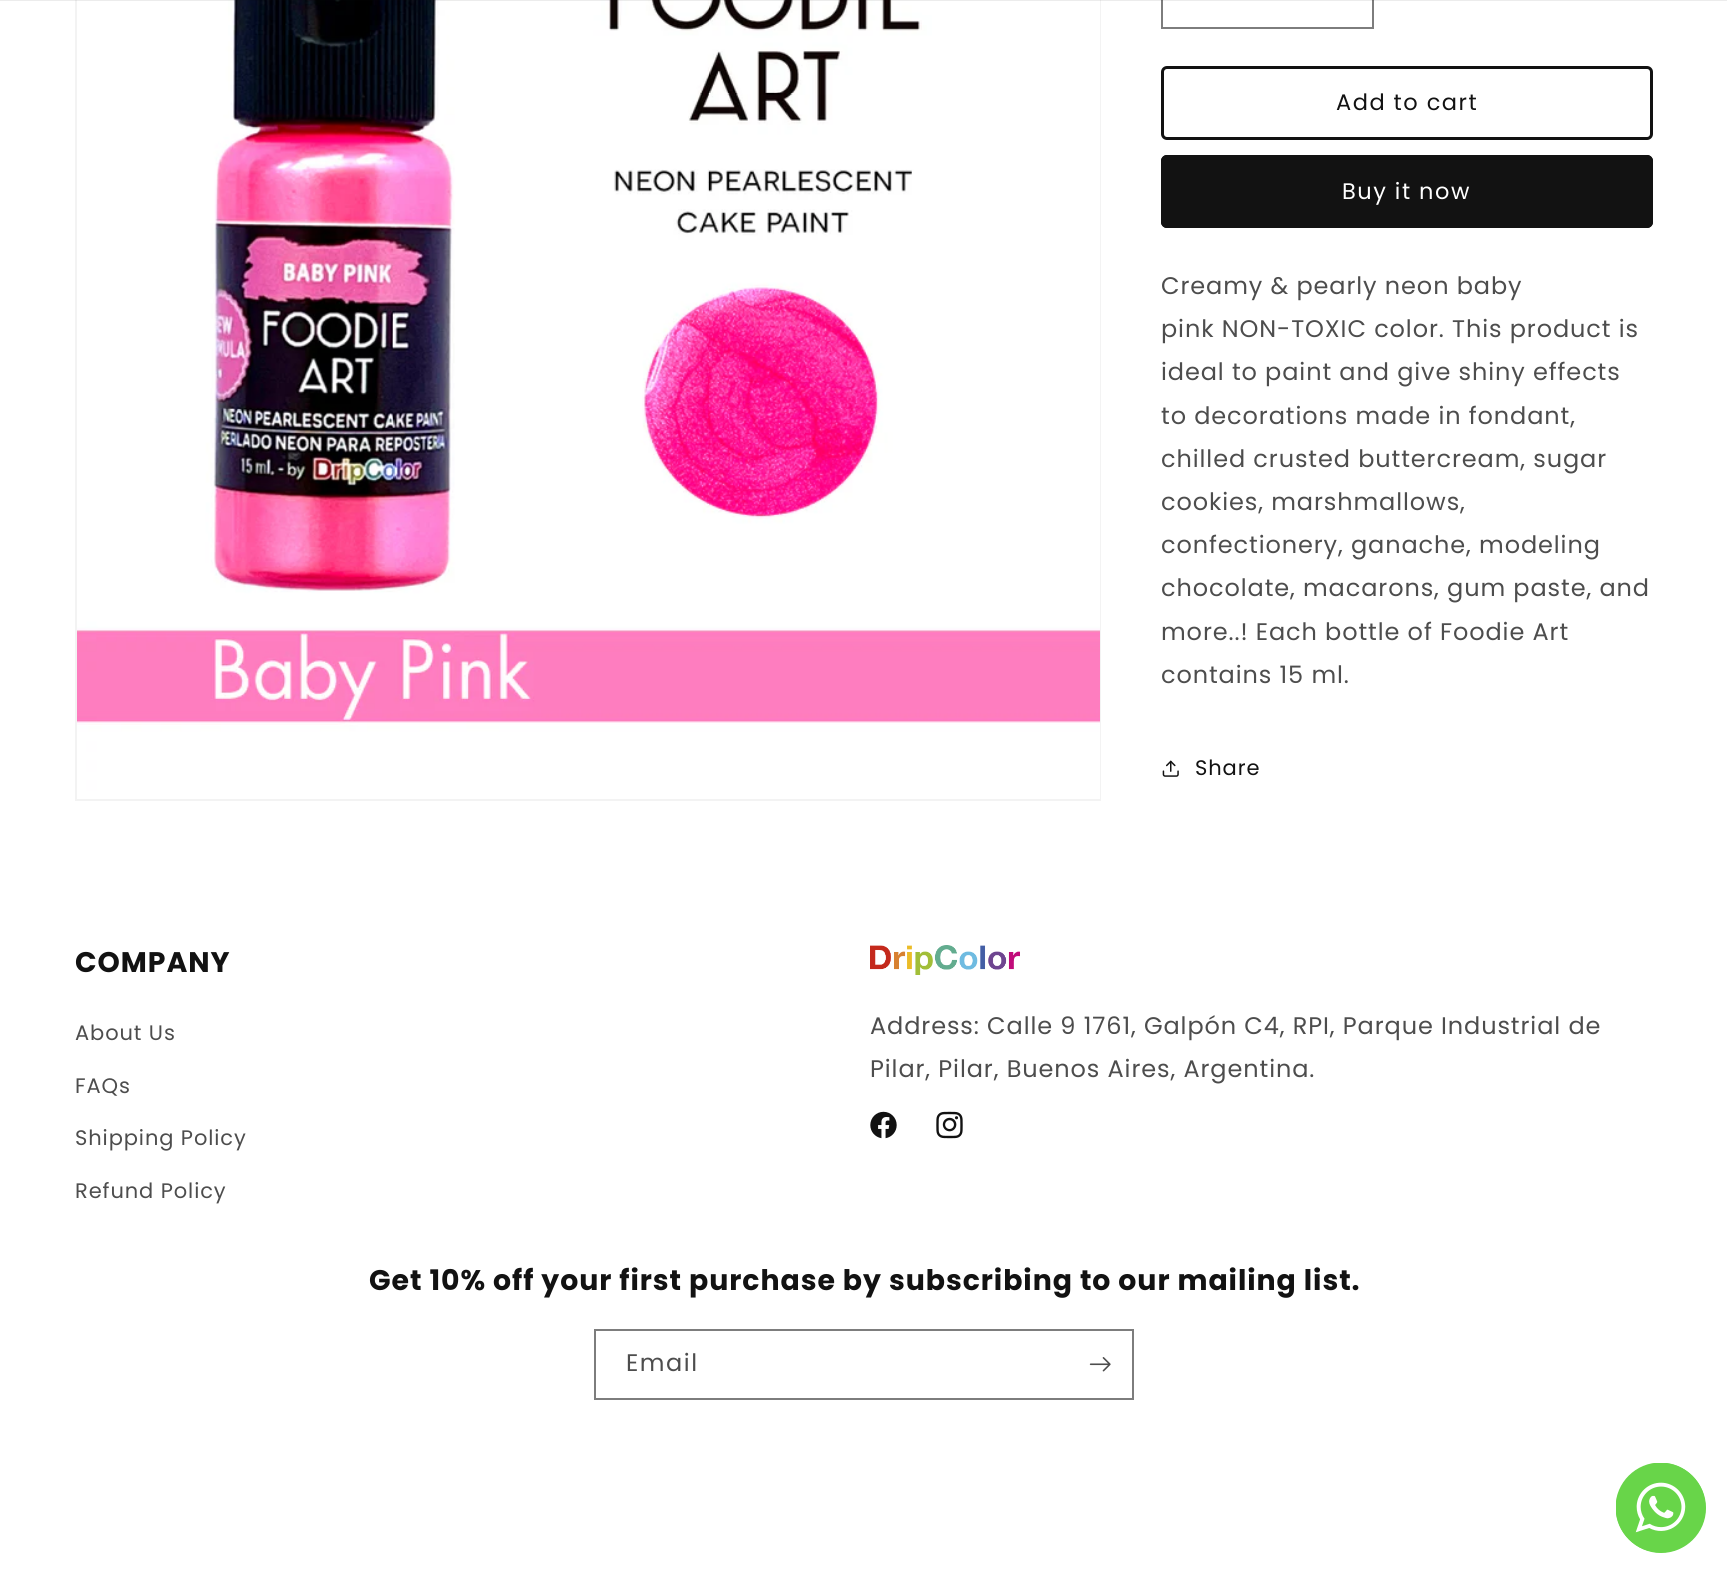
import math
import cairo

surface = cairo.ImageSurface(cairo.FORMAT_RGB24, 1727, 1575)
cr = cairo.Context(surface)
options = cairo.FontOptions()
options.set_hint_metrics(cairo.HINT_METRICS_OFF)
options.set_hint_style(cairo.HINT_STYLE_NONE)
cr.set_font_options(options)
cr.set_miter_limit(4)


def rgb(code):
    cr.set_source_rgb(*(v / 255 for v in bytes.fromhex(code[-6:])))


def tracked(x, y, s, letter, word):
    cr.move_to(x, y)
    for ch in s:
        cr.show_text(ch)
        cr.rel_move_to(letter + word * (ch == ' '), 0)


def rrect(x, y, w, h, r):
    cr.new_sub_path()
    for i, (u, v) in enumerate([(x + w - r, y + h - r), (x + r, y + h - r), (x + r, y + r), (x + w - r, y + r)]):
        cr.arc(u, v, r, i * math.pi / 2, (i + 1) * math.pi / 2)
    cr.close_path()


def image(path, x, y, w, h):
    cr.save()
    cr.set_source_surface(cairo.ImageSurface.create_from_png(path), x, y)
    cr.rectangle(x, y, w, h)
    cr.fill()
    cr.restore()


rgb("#ffffff")
cr.paint()
cr.rectangle(76, -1, 1024, 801)
rgb("#f3f3f3")
cr.stroke()
image("img/1.png", 77, 0, 1023, 799)
cr.rectangle(1162, -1, 211, 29)
rgb("#7d7d7d")
cr.stroke()
cr.set_source_rgba(0.071, 0.071, 0.071, 0.08)
cr.rectangle(0, 0, 1727, 1)
cr.fill()
rrect(1162.5, 67.5, 489, 71, 4.5)
rgb("#121212")
cr.set_line_width(3)
cr.stroke()
rrect(1161, 155, 492, 73, 6)
cr.fill()
rrect(1162.5, 156.5, 489, 70, 4.5)
cr.stroke()
image("img/2.png", 1162, 760, 17, 17)
image("img/3.png", 870, 945, 150, 30)
image("img/4.png", 870, 1111, 27, 28)
image("img/5.png", 936, 1111, 27, 28)
cr.rectangle(595, 1330, 538, 69)
rgb("#7d7d7d")
cr.set_line_width(2)
cr.stroke()
image("img/6.png", 1089, 1357, 22, 15)
rgb("#68d549")
cr.arc(1661, 1508, 45, 0, 2 * math.pi)
cr.fill()
image("img/7.png", 1616, 1463, 90, 90)
cr.select_font_face("Poppins")
cr.set_font_size(22.5)
rgb("#121212")
tracked(1336, 110, "Add to cart", 1.5, 0)
rgb("#ffffff")
tracked(1342, 199, "Buy it now", 1.5, 0)
cr.set_font_size(24)
rgb("#4d4d4d")
for x, y, s in [
    (1161, 294, "Creamy & pearly neon baby"),
    (1161, 337, "pink NON-TOXIC color. This product is"),
    (1161, 380, "ideal to paint and give shiny effects"),
    (1161, 424, "to decorations made in fondant,"),
    (1161, 467, "chilled crusted buttercream, sugar"),
    (1161, 510, "cookies, marshmallows,"),
    (1161, 553, "confectionery, ganache, modeling"),
    (1161, 596, "chocolate, macarons, gum paste, and"),
    (1161, 640, "more..! Each bottle of Foodie Art"),
    (1161, 683, "contains 15 ml."),
]:
    tracked(x, y, s, 0.9, 0)
cr.set_font_size(21)
rgb("#121212")
tracked(1195, 775, "Share", 0.9, 0)
cr.select_font_face("Poppins", cairo.FONT_SLANT_NORMAL, cairo.FONT_WEIGHT_BOLD)
cr.set_font_size(28.35)
tracked(75, 972, "COMPANY", 0.95, 0)
cr.select_font_face("Poppins")
cr.set_font_size(21)
rgb("#4d4d4d")
for x, y, s in [
    (75, 1040, "About Us"),
    (75, 1093, "FAQs"),
    (75, 1145, "Shipping Policy"),
    (75, 1198, "Refund Policy"),
]:
    tracked(x, y, s, 0.9, 0)
cr.set_font_size(24)
tracked(870, 1034, "Address: Calle 9 1761, Galpón C4, RPI, Parque Industrial de", 0.9, 0)
tracked(870, 1077, "Pilar, Pilar, Buenos Aires, Argentina.", 0.9, 0)
cr.select_font_face("Poppins", cairo.FONT_SLANT_NORMAL, cairo.FONT_WEIGHT_BOLD)
cr.set_font_size(28.35)
rgb("#121212")
tracked(369, 1290, "Get 10% off your first purchase by subscribing to our mailing list.", 0.95, 0)
cr.select_font_face("Poppins")
cr.set_font_size(24)
rgb("#4d4d4d")
tracked(626, 1371, "Email", 1.5, 0)
surface.write_to_png("page.png")
